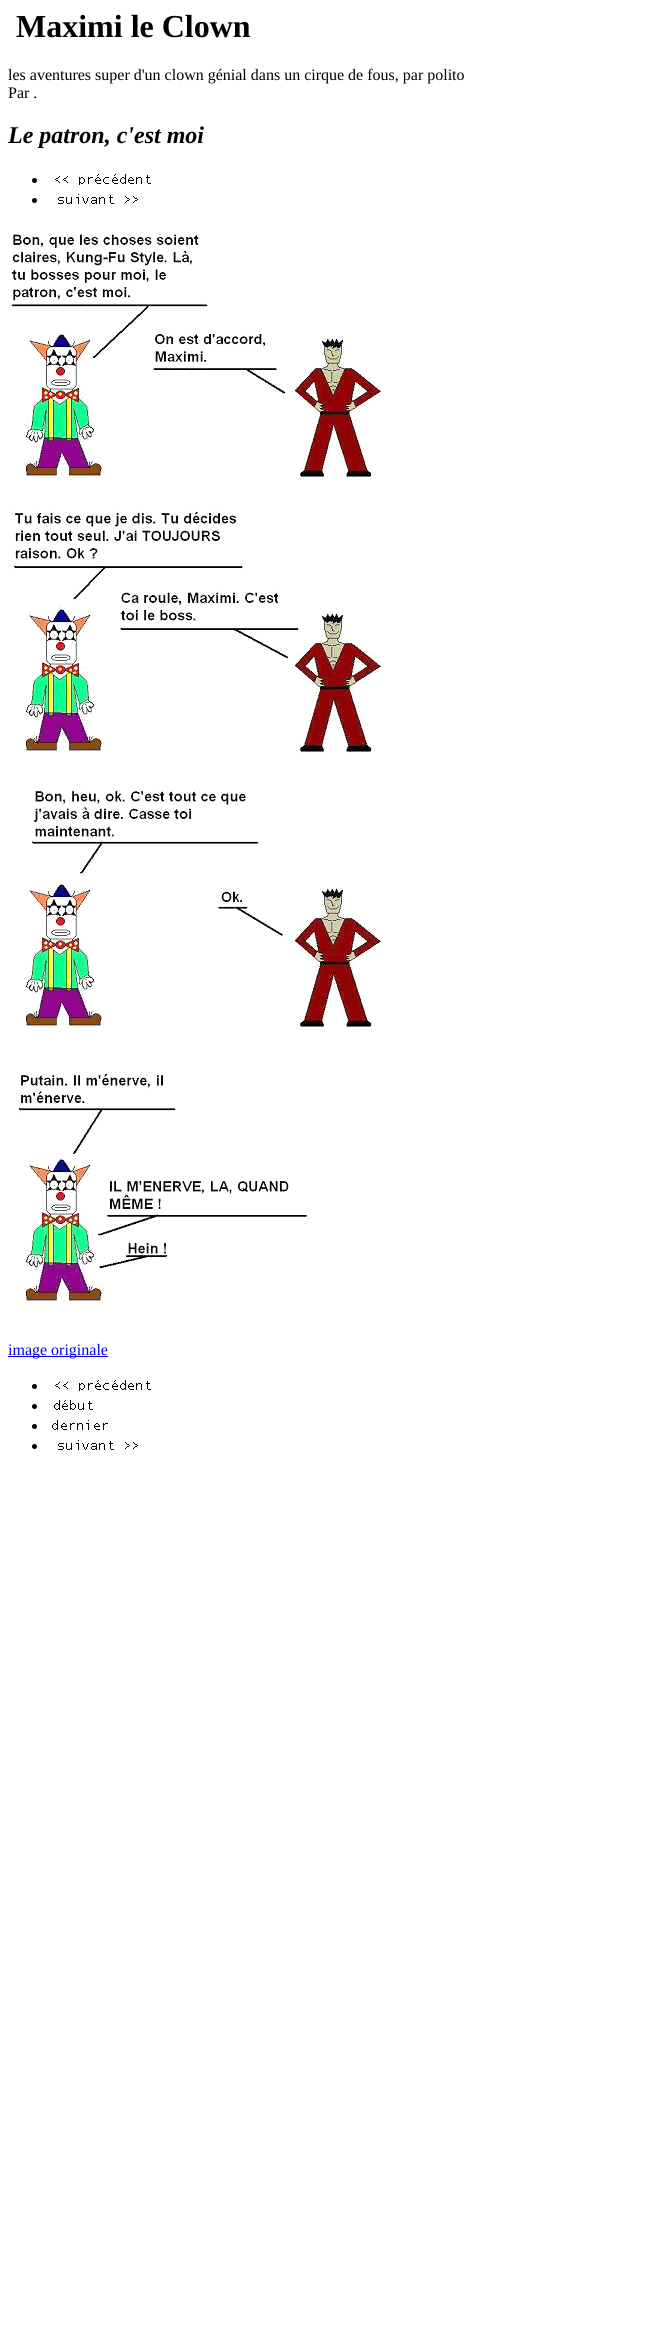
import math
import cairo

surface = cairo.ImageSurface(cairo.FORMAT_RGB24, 650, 2341)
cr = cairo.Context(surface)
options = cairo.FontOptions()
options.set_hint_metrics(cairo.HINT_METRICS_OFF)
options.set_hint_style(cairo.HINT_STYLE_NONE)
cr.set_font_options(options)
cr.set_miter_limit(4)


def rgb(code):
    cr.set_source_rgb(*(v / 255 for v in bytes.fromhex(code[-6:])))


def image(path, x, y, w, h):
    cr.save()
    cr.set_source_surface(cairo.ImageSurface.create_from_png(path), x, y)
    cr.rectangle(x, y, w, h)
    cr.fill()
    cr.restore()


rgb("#ffffff")
cr.paint()
rgb("#000000")
cr.arc(34.5, 180.5, 2.5, 0, 2 * math.pi)
cr.fill()
image("img/1.png", 55, 174, 96, 11)
cr.arc(34.5, 200.5, 2.5, 0, 2 * math.pi)
cr.fill()
image("img/2.png", 58, 194, 80, 10)
image("img/3.png", 8, 233, 376, 248)
image("img/4.png", 11, 509, 373, 247)
image("img/5.png", 24, 791, 360, 240)
image("img/6.png", 16, 1074, 294, 231)
rgb("#0000ee")
cr.rectangle(8, 1356, 100, 1)
cr.fill()
rgb("#000000")
cr.arc(34.5, 1386.5, 2.5, 0, 2 * math.pi)
cr.fill()
image("img/1.png", 55, 1380, 96, 11)
cr.arc(34.5, 1406.5, 2.5, 0, 2 * math.pi)
cr.fill()
image("img/7.png", 54, 1400, 39, 10)
cr.arc(34.5, 1426.5, 2.5, 0, 2 * math.pi)
cr.fill()
image("img/8.png", 52, 1420, 56, 10)
cr.arc(34.5, 1446.5, 2.5, 0, 2 * math.pi)
cr.fill()
image("img/2.png", 58, 1440, 80, 10)
cr.select_font_face("Liberation Serif", cairo.FONT_SLANT_NORMAL, cairo.FONT_WEIGHT_BOLD)
cr.set_font_size(32)
cr.move_to(16, 37)
cr.show_text("Maximi le Clown")
cr.select_font_face("Liberation Serif")
cr.set_font_size(16)
cr.move_to(8, 80)
cr.show_text("les aventures super d'un clown génial dans un cirque de fous, par polito")
cr.move_to(8, 98)
cr.show_text("Par .")
cr.select_font_face("Liberation Serif", cairo.FONT_SLANT_ITALIC, cairo.FONT_WEIGHT_BOLD)
cr.set_font_size(24)
cr.move_to(8, 143)
cr.show_text("Le patron, c'est moi")
cr.select_font_face("Liberation Serif")
cr.set_font_size(16)
rgb("#0000ee")
cr.move_to(8, 1355)
cr.show_text("image originale")
surface.write_to_png("page.png")
